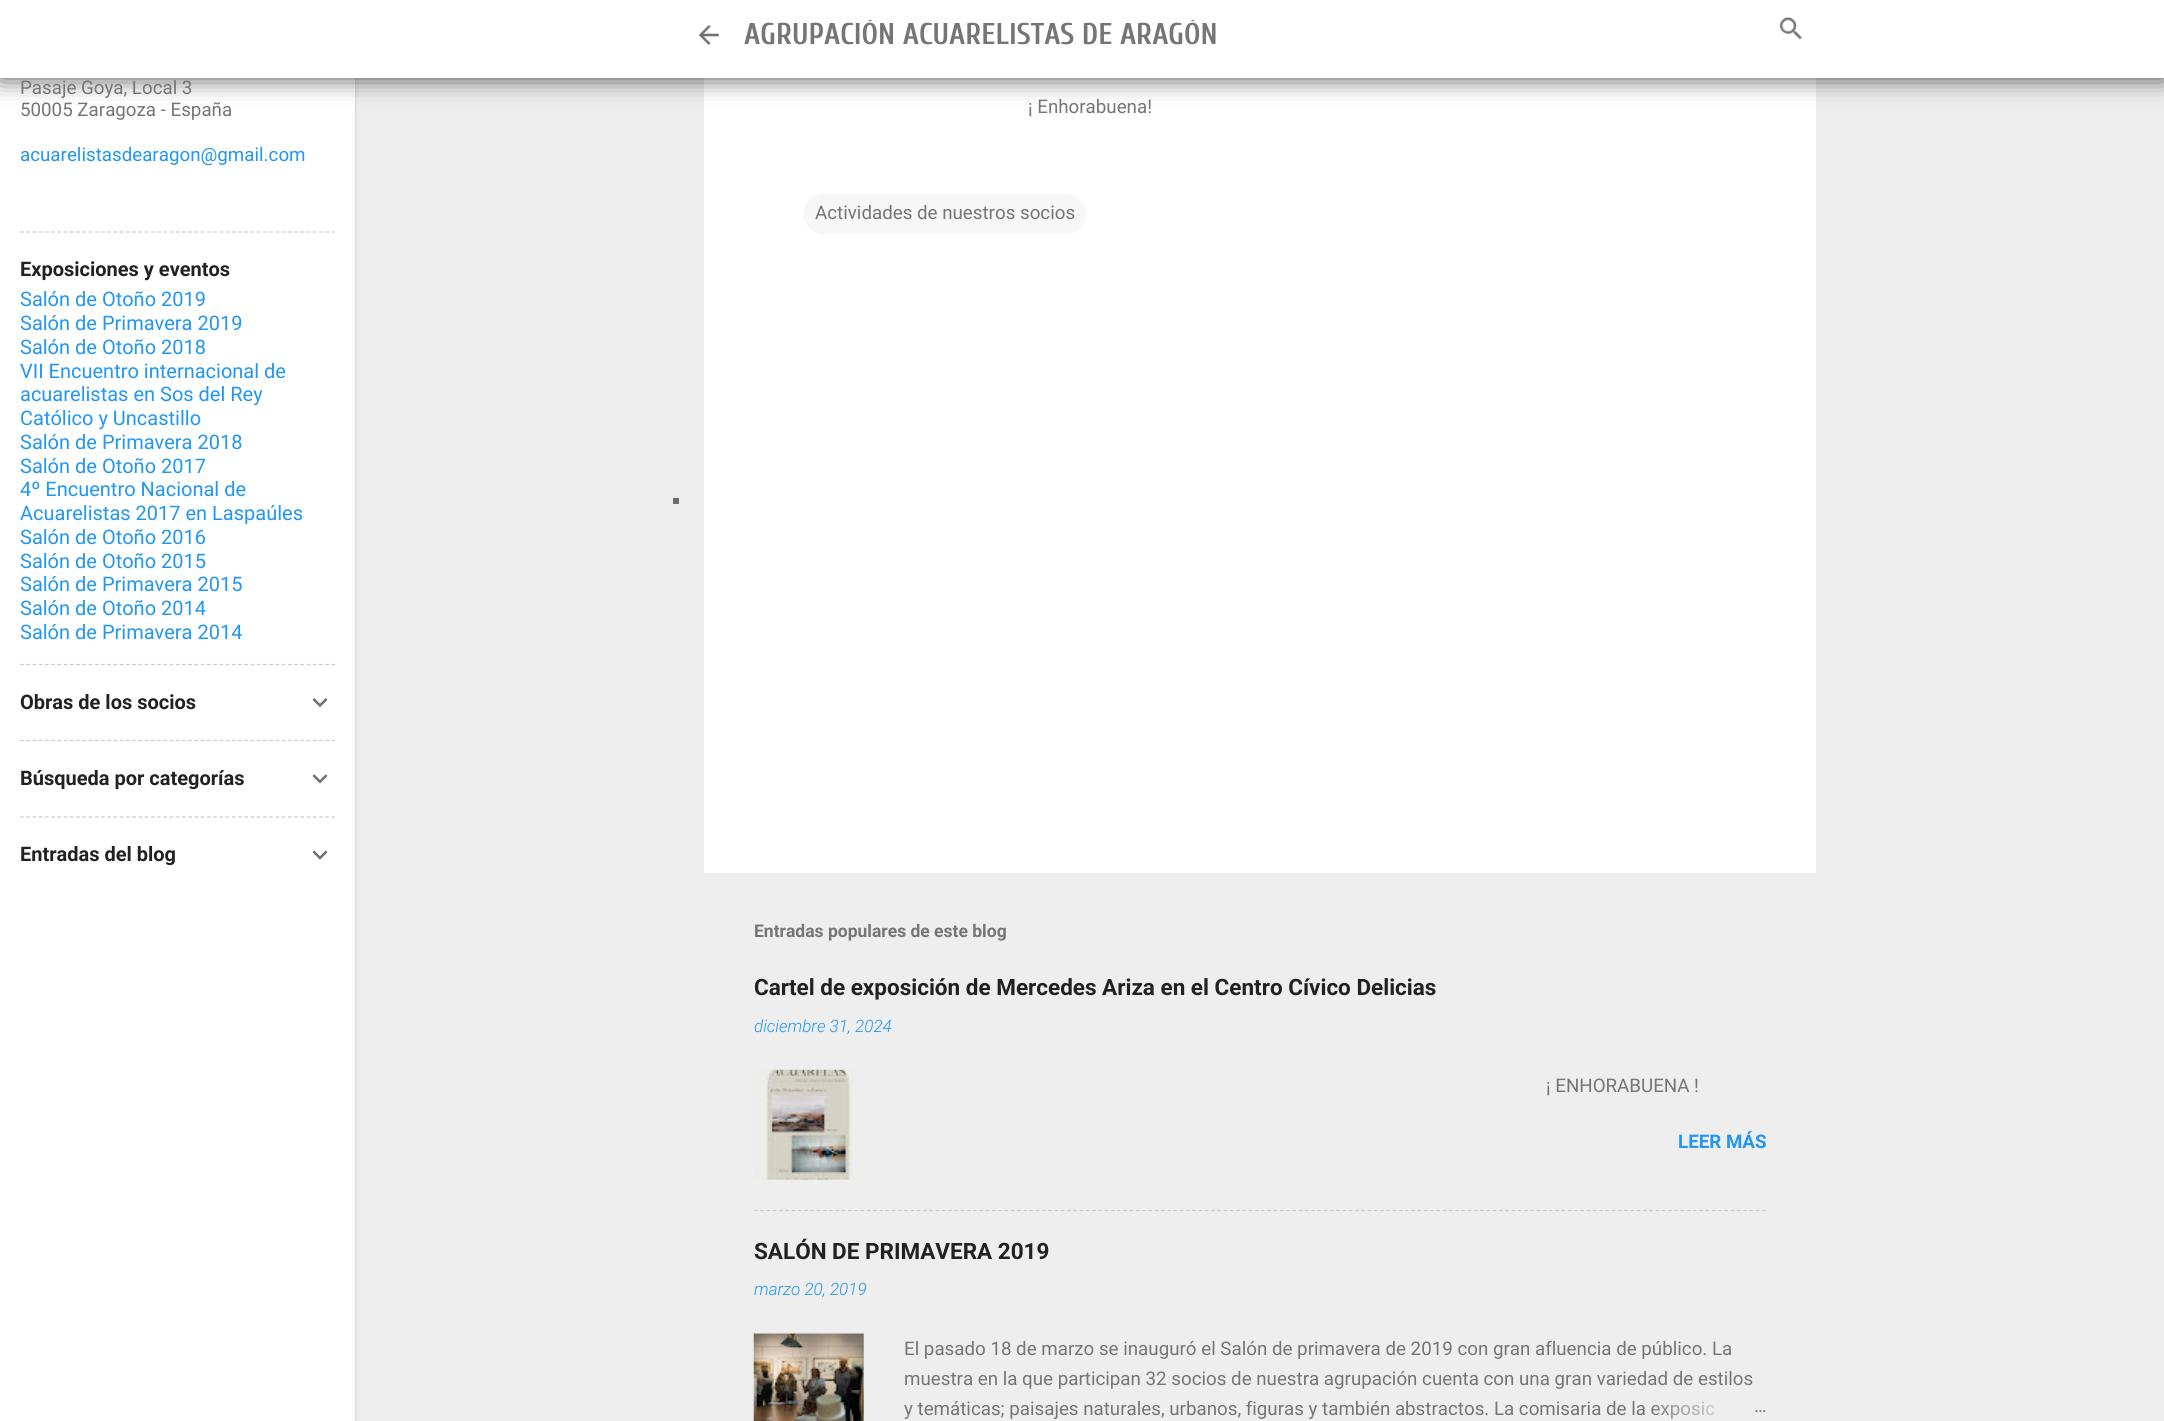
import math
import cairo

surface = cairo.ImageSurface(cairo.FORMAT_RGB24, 2164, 1421)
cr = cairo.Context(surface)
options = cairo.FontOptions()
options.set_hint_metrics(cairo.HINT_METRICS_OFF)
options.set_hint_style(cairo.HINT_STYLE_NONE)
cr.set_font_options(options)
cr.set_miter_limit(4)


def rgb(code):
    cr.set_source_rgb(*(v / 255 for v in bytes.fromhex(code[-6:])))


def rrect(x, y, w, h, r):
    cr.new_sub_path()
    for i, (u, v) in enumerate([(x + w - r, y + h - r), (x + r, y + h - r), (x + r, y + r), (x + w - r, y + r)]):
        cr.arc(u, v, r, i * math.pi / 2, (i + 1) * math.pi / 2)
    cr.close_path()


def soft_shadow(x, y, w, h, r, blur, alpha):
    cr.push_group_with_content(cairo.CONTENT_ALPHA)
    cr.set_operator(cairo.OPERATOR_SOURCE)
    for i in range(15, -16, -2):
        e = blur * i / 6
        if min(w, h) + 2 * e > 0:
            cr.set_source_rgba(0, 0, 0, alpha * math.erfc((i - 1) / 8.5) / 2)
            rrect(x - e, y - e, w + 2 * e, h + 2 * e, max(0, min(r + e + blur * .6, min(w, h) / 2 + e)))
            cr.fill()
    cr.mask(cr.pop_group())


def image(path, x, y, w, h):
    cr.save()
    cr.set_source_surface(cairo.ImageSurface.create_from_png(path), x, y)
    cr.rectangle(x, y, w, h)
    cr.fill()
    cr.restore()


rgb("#eeeeee")
cr.paint()
rgb("#000000")
soft_shadow(1, 13, 355, 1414, 0, 2, 0.1)
rgb("#ffffff")
cr.rectangle(0, 78, 355, 1343)
cr.fill()
cr.rectangle(704, 78, 1112, 795)
cr.fill()
rgb("#000000")
soft_shadow(0, 0, 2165, 78, 0, 12.5, 0.7)
rgb("#ffffff")
cr.rectangle(0, 0, 2164, 78)
cr.fill()
image("img/1.png", 698, 25, 21, 20)
image("img/2.png", 1779, 16, 24, 24)
cr.new_path()
cr.move_to(20, 232)
cr.line_to(335, 232)
rgb("#cccccc")
cr.set_line_width(1.2)
cr.set_dash([3.75, 2.48])
cr.stroke()
cr.new_path()
cr.move_to(20, 664.5)
cr.line_to(335, 664.5)
cr.stroke()
image("img/3.png", 312, 698, 16, 10)
cr.new_path()
cr.move_to(20, 740.5)
cr.line_to(335, 740.5)
cr.stroke()
image("img/4.png", 312, 774, 16, 10)
cr.new_path()
cr.move_to(20, 817)
cr.line_to(335, 817)
cr.stroke()
image("img/5.png", 312, 850, 16, 10)
rgb("#6d6d6d")
cr.rectangle(673, 498, 6, 6)
cr.fill()
rgb("#f7f7f7")
rrect(804, 194, 282, 40, 19)
cr.fill()
image("img/6.png", 754, 1069, 98, 111)
cr.new_path()
cr.move_to(754, 1210.5)
cr.line_to(1766, 1210.5)
rgb("#cccccc")
cr.set_dash([3.75, 2.51])
cr.stroke()
image("img/7.png", 753, 1333, 111, 88)
cr.save()
cr.rectangle(744, 20, 499, 43)
cr.clip()
cr.select_font_face("Cuprum", cairo.FONT_SLANT_NORMAL, cairo.FONT_WEIGHT_BOLD)
cr.set_font_size(30)
rgb("#757575")
cr.move_to(744, 44)
cr.show_text("AGRUPACIÓN ACUARELISTAS DE ARAGÓN")
cr.restore()
cr.select_font_face("Roboto")
cr.set_font_size(18.75)
rgb("#757575")
cr.move_to(20, 94)
cr.show_text("Pasaje Goya, Local 3")
cr.move_to(20, 116)
cr.show_text("50005 Zaragoza - España")
rgb("#2196f3")
cr.move_to(20, 161)
cr.show_text("acuarelistasdearagon@gmail.com")
cr.select_font_face("Roboto", cairo.FONT_SLANT_NORMAL, cairo.FONT_WEIGHT_BOLD)
cr.set_font_size(20)
rgb("#212121")
cr.move_to(20, 276)
cr.show_text("Exposiciones y eventos")
cr.select_font_face("Roboto")
rgb("#2196f3")
for x, y, s in [
    (20, 306, "Salón de Otoño 2019"),
    (20, 330, "Salón de Primavera 2019"),
    (20, 354, "Salón de Otoño 2018"),
    (20, 378, "VII Encuentro internacional de"),
    (20, 401, "acuarelistas en Sos del Rey"),
    (20, 425, "Católico y Uncastillo"),
    (20, 449, "Salón de Primavera 2018"),
    (20, 473, "Salón de Otoño 2017"),
    (20, 496, "4º Encuentro Nacional de"),
    (20, 520, "Acuarelistas 2017 en Laspaúles"),
    (20, 544, "Salón de Otoño 2016"),
    (20, 568, "Salón de Otoño 2015"),
    (20, 591, "Salón de Primavera 2015"),
    (20, 615, "Salón de Otoño 2014"),
    (20, 639, "Salón de Primavera 2014"),
]:
    cr.move_to(x, y)
    cr.show_text(s)
cr.select_font_face("Roboto", cairo.FONT_SLANT_NORMAL, cairo.FONT_WEIGHT_BOLD)
rgb("#212121")
for x, y, s in [
    (20, 709, "Obras de los socios"),
    (20, 785, "Búsqueda por categorías"),
    (20, 861, "Entradas del blog"),
]:
    cr.move_to(x, y)
    cr.show_text(s)
cr.select_font_face("Roboto")
cr.set_font_size(18.75)
rgb("#757575")
cr.move_to(1028, 113)
cr.show_text("¡ Enhorabuena!")
cr.move_to(815, 219)
cr.show_text("Actividades de nuestros socios")
cr.select_font_face("Roboto", cairo.FONT_SLANT_NORMAL, cairo.FONT_WEIGHT_BOLD)
cr.set_font_size(17.5)
cr.move_to(754, 937)
cr.show_text("Entradas populares de este blog")
cr.set_font_size(22.5)
rgb("#212121")
cr.move_to(754, 995)
cr.show_text("Cartel de exposición de Mercedes Ariza en el Centro Cívico Delicias")
cr.select_font_face("Roboto Light", cairo.FONT_SLANT_ITALIC)
cr.set_font_size(17)
rgb("#2196f3")
cr.move_to(754, 1032)
cr.show_text("diciembre 31, 2024")
cr.select_font_face("Roboto")
cr.set_font_size(18.75)
rgb("#757575")
cr.move_to(1546, 1092)
cr.show_text("¡ ENHORABUENA !")
cr.select_font_face("Roboto", cairo.FONT_SLANT_NORMAL, cairo.FONT_WEIGHT_BOLD)
rgb("#2196f3")
cr.move_to(1678, 1148)
cr.show_text("LEER MÁS")
cr.set_font_size(22.5)
rgb("#212121")
cr.move_to(754, 1259)
cr.show_text("SALÓN DE PRIMAVERA 2019")
cr.select_font_face("Roboto Light", cairo.FONT_SLANT_ITALIC)
cr.set_font_size(17)
rgb("#2196f3")
cr.move_to(754, 1295)
cr.show_text("marzo 20, 2019")
cr.select_font_face("Roboto")
cr.set_font_size(18.75)
rgb("#757575")
for x, y, s in [
    (904, 1355, "El pasado 18 de marzo se inauguró el Salón de primavera de 2019 con gran afluencia de público. La"),
    (904, 1385, "muestra en la que participan 32 socios de nuestra agrupación cuenta con una gran variedad de estilos"),
    (904, 1415, "y temáticas; paisajes naturales, urbanos, figuras y también abstractos. La comisaria de la exposic"),
]:
    cr.move_to(x, y)
    cr.show_text(s)
gradient = cairo.LinearGradient(1766, 1409, 1646, 1409)
gradient.add_color_stop_rgba(0, 0.933, 0.933, 0.933, 1)
gradient.add_color_stop_rgba(0.2, 0.933, 0.933, 0.933, 1)
gradient.add_color_stop_rgba(1, 0.933, 0.933, 0.933, 0)
cr.set_source(gradient)
cr.rectangle(1651, 1401, 64, 18)
cr.fill()
rgb("#757575")
cr.move_to(1754, 1412)
cr.show_text("…")
surface.write_to_png("page.png")
